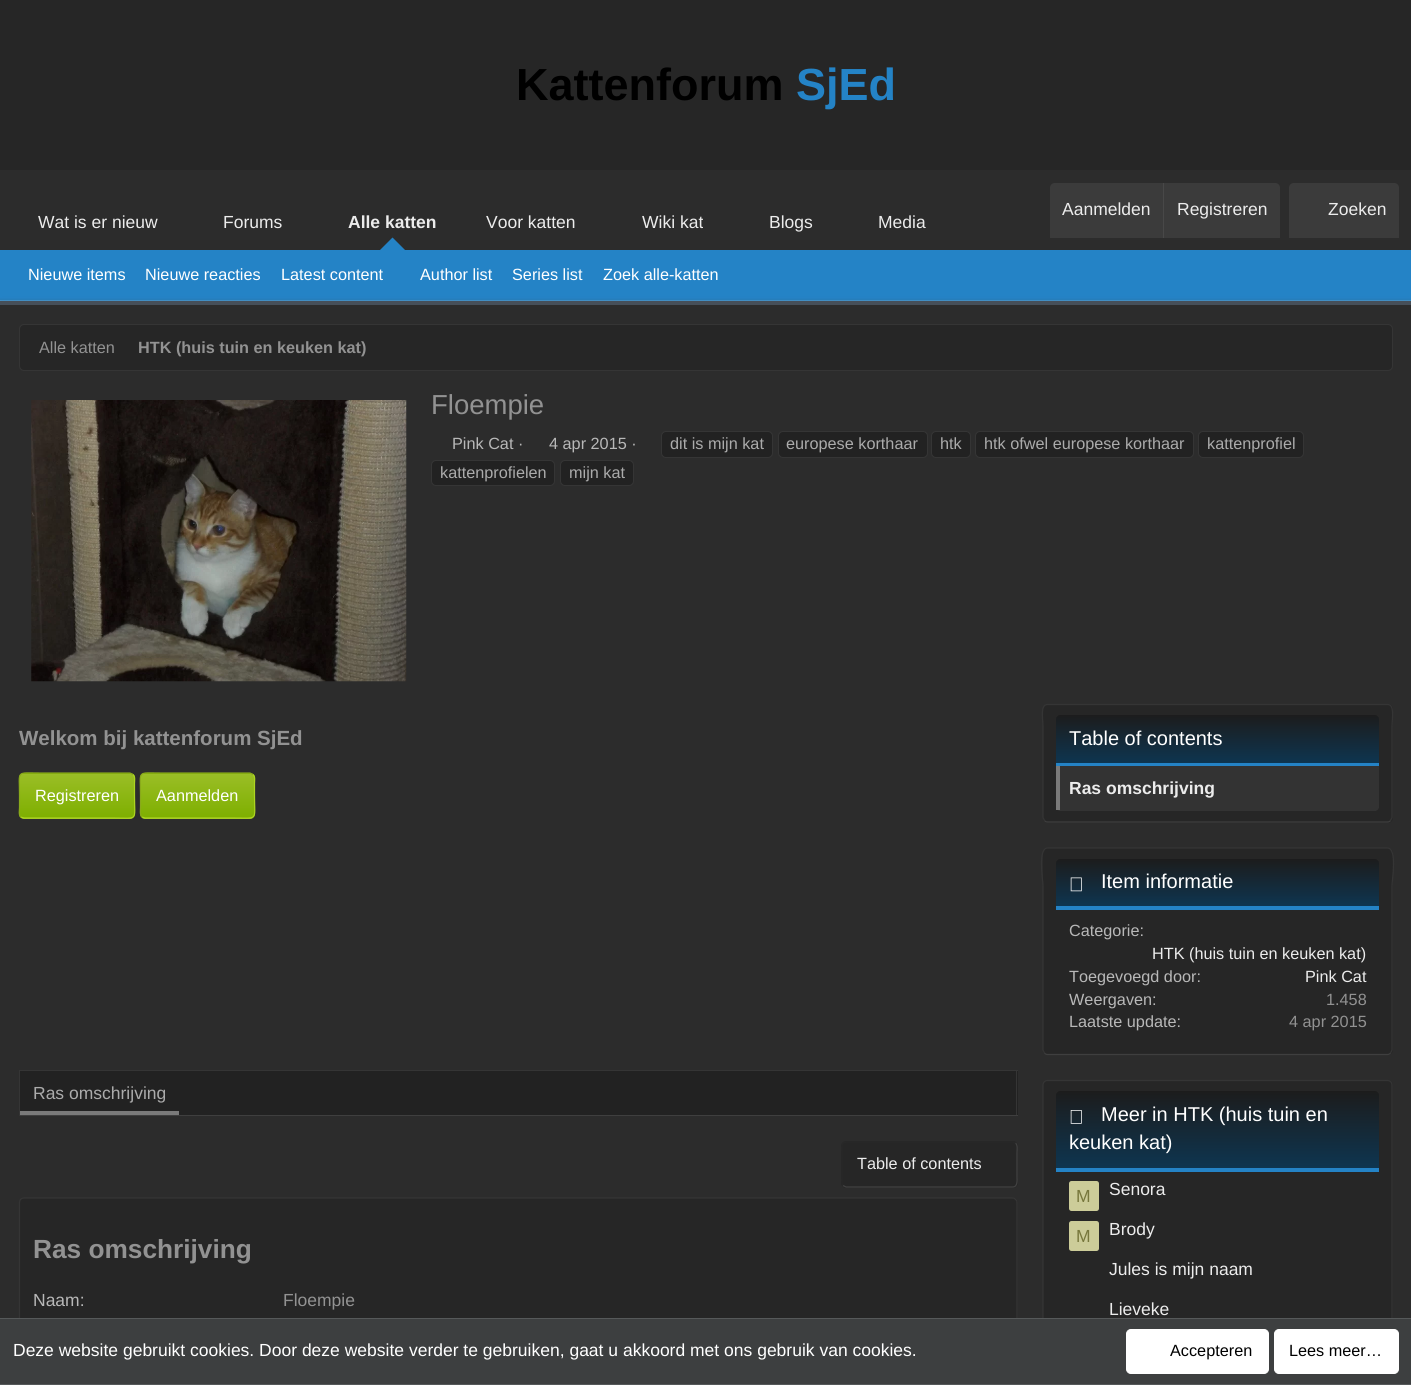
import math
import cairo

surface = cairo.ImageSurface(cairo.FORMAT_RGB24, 1411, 1385)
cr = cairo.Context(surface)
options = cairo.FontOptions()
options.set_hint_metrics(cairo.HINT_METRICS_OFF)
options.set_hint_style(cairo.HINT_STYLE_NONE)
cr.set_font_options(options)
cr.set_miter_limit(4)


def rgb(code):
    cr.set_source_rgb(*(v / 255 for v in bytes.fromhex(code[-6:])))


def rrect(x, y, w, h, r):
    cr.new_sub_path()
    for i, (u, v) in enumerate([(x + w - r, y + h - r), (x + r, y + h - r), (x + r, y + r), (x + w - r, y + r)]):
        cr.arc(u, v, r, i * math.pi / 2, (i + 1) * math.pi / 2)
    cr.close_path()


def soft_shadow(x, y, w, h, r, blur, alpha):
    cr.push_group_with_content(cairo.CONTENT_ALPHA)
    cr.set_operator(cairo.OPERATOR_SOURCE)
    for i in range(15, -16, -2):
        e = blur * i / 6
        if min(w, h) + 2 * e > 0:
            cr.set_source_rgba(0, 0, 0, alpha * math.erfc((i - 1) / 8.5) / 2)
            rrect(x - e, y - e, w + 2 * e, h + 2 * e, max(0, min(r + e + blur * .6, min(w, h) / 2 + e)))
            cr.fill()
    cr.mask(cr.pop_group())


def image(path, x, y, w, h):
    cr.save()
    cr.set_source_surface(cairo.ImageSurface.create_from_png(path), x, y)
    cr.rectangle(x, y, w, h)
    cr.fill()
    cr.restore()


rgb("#262626")
cr.paint()
rgb("#2c2c2c")
cr.rectangle(0, 170, 1411, 80)
cr.fill()
rgb("#3b3b3b")
cr.new_path()
cr.move_to(1055, 183)
cr.line_to(1275, 183)
cr.curve_to(1278, 183, 1280, 185, 1280, 188)
cr.line_to(1280, 238)
cr.line_to(1050, 238)
cr.line_to(1050, 188)
cr.curve_to(1050, 185, 1052, 183, 1055, 183)
cr.close_path()
cr.fill()
rgb("#484848")
cr.rectangle(1163, 183, 1, 55)
cr.fill()
rgb("#3b3b3b")
cr.new_path()
cr.move_to(1294, 183)
cr.line_to(1394, 183)
cr.curve_to(1397, 183, 1399, 185, 1399, 188)
cr.line_to(1399, 238)
cr.line_to(1289, 238)
cr.line_to(1289, 188)
cr.curve_to(1289, 185, 1291, 183, 1294, 183)
cr.close_path()
cr.fill()
rgb("#2483c6")
cr.new_path()
cr.move_to(405, 250)
cr.line_to(380, 250)
cr.line_to(392.5, 237.5)
cr.close_path()
cr.fill()
cr.rectangle(0, 250, 1411, 50)
cr.fill()
rgb("#419cdc")
cr.rectangle(0, 300, 1411, 1)
cr.fill()
rgb("#434242")
soft_shadow(0, 303, 1411, 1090, 0, 2.5, 1)
rgb("#2c2c2c")
cr.rectangle(0, 305, 1411, 1013)
cr.fill()
rgb("#464f59")
cr.rectangle(0, 301, 1411, 4)
cr.fill()
rgb("#262626")
rrect(19.5, 324.5, 1373, 46, 4.5)
cr.fill_preserve()
rgb("#353535")
cr.set_line_width(1)
cr.stroke()
image("img/1.png", 31, 400, 376, 282)
rgb("#222222")
rrect(661.5, 431.5, 111, 26, 4.5)
cr.fill_preserve()
rgb("#353535")
cr.stroke()
rgb("#222222")
rrect(778.5, 431.5, 149, 26, 4.5)
cr.fill_preserve()
rgb("#353535")
cr.stroke()
rgb("#222222")
rrect(931.5, 431.5, 39, 26, 4.5)
cr.fill_preserve()
rgb("#353535")
cr.stroke()
rgb("#222222")
rrect(975.5, 431.5, 218, 26, 4.5)
cr.fill_preserve()
rgb("#353535")
cr.stroke()
rgb("#222222")
rrect(1198.5, 431.5, 105, 26, 4.5)
cr.fill_preserve()
rgb("#353535")
cr.stroke()
rgb("#222222")
rrect(431.5, 460.5, 123, 25, 4.5)
cr.fill_preserve()
rgb("#353535")
cr.stroke()
rgb("#222222")
rrect(560.5, 460.5, 73, 25, 4.5)
cr.fill_preserve()
rgb("#353535")
cr.stroke()
cr.save()
rrect(19, 773, 116, 46, 5)
cr.clip()
gradient = cairo.LinearGradient(77, 730, 77, 774)
gradient.add_color_stop_rgba(0, 0.604, 0.745, 0.149, 1)
gradient.add_color_stop_rgba(1, 0.494, 0.686, 0, 1)
cr.set_source(gradient)
cr.rectangle(19, 773, 116, 1)
cr.fill()
gradient = cairo.LinearGradient(77, 774, 77, 818)
gradient.add_color_stop_rgba(0, 0.604, 0.745, 0.149, 1)
gradient.add_color_stop_rgba(1, 0.494, 0.686, 0, 1)
cr.set_source(gradient)
cr.rectangle(19, 774, 116, 44)
cr.fill()
gradient = cairo.LinearGradient(77, 818, 77, 861)
gradient.add_color_stop_rgba(0, 0.604, 0.745, 0.149, 1)
gradient.add_color_stop_rgba(1, 0.494, 0.686, 0, 1)
cr.set_source(gradient)
cr.rectangle(19, 818, 116, 1)
cr.fill()
cr.restore()
cr.new_path()
cr.move_to(133, 774.5)
cr.curve_to(135.5, 776.5, 134.5, 781, 134.5, 783.5)
cr.line_to(134.5, 795.5)
cr.curve_to(134.5, 822, 139, 818, 112.5, 818)
cr.line_to(24, 818)
cr.line_to(20.5, 817)
rgb("#add521")
cr.set_line_width(1.2)
cr.stroke()
cr.new_path()
cr.move_to(20.5, 817)
cr.curve_to(18.5, 814.5, 19.5, 810, 19.5, 807.5)
cr.line_to(19.5, 795.5)
cr.curve_to(19.5, 769.5, 15, 773, 41.5, 773)
cr.line_to(130, 773)
cr.line_to(133, 774.5)
rgb("#89a91b")
cr.stroke()
cr.save()
rrect(140, 773, 115, 46, 5)
cr.clip()
gradient = cairo.LinearGradient(198, 730, 198, 774)
gradient.add_color_stop_rgba(0, 0.604, 0.745, 0.149, 1)
gradient.add_color_stop_rgba(1, 0.494, 0.686, 0, 1)
cr.set_source(gradient)
cr.rectangle(140, 773, 115, 1)
cr.fill()
gradient = cairo.LinearGradient(198, 774, 198, 818)
gradient.add_color_stop_rgba(0, 0.604, 0.745, 0.149, 1)
gradient.add_color_stop_rgba(1, 0.494, 0.686, 0, 1)
cr.set_source(gradient)
cr.rectangle(140, 774, 115, 44)
cr.fill()
gradient = cairo.LinearGradient(198, 818, 198, 861)
gradient.add_color_stop_rgba(0, 0.604, 0.745, 0.149, 1)
gradient.add_color_stop_rgba(1, 0.494, 0.686, 0, 1)
cr.set_source(gradient)
cr.rectangle(140, 818, 115, 1)
cr.fill()
cr.restore()
cr.new_path()
cr.move_to(253, 774.5)
cr.curve_to(255.5, 776.5, 254.5, 781, 254.5, 783.5)
cr.line_to(254.5, 795.5)
cr.curve_to(254.5, 821.5, 259, 818, 232.5, 818)
cr.line_to(145, 818)
cr.line_to(142, 817)
rgb("#add521")
cr.stroke()
cr.new_path()
cr.move_to(142, 817)
cr.curve_to(139.5, 814.5, 140.5, 810, 140.5, 807.5)
cr.line_to(140.5, 795.5)
cr.curve_to(140.5, 769.5, 136, 773, 162.5, 773)
cr.line_to(250, 773)
cr.line_to(253, 774.5)
rgb("#89a91b")
cr.stroke()
for x, y, w, h, color in [
    (20, 1071, 998, 44, "#222222"),
    (19, 1070, 999, 1, "#353535"),
    (1016, 1070, 1, 46, "#353535"),
    (19, 1115, 999, 1, "#3f3f3f"),
    (19, 1070, 1, 46, "#353535"),
    (20, 1111, 159, 4, "#7a7a7a"),
]:
    rgb(color)
    cr.rectangle(x, y, w, h)
    cr.fill()
rgb("#262626")
rrect(841, 1141, 177, 47, 5)
cr.fill()
cr.new_path()
cr.move_to(1015.5, 1143)
cr.curve_to(1018, 1145.5, 1017, 1150, 1017, 1152.5)
cr.line_to(1017, 1176.5)
cr.curve_to(1017, 1180, 1018, 1187, 1012.5, 1187)
cr.line_to(846, 1187)
cr.line_to(843, 1185.5)
rgb("#424242")
cr.stroke()
cr.new_path()
cr.move_to(843, 1185.5)
cr.curve_to(841, 1183.5, 842, 1179, 842, 1176.5)
cr.line_to(842, 1152.5)
cr.curve_to(842, 1149, 840.5, 1142, 846, 1142)
cr.line_to(1012.5, 1142)
cr.line_to(1015.5, 1143)
rgb("#282828")
cr.stroke()
rgb("#262626")
rrect(19, 1198, 999, 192, 5)
cr.fill()
cr.new_path()
cr.move_to(20.5, 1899.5)
cr.curve_to(20, 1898.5, 19.5, 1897.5, 19.5, 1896)
cr.line_to(19.5, 1202.5)
cr.curve_to(19.5, 1201.5, 20, 1200, 20.5, 1199.5)
cr.curve_to(21.5, 1198.5, 22.5, 1198, 24, 1198)
cr.line_to(1012.5, 1198)
cr.curve_to(1013.5, 1198, 1015, 1198.5, 1015.5, 1199.5)
cr.curve_to(1016.5, 1200, 1017, 1201.5, 1017, 1202.5)
cr.line_to(1017, 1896)
cr.curve_to(1017, 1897.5, 1016.5, 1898.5, 1015.5, 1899.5)
rgb("#353535")
cr.stroke()
rgb("#262626")
rrect(1043, 704, 350, 119, 5)
cr.fill()
cr.new_path()
cr.move_to(1390.5, 820.5)
cr.curve_to(1390, 821.5, 1388.5, 822, 1387.5, 822)
cr.line_to(1047.5, 822)
cr.curve_to(1046.5, 822, 1045, 821.5, 1044.5, 820.5)
rgb("#3f3f3f")
cr.stroke()
cr.new_path()
cr.move_to(1044.5, 820.5)
cr.line_to(1043, 817.5)
cr.line_to(1043, 727)
cr.curve_to(1043, 718.5, 1040, 704.5, 1047.5, 704.5)
cr.line_to(1387.5, 704.5)
cr.curve_to(1395, 704.5, 1392, 718.5, 1392, 727)
cr.line_to(1392, 817.5)
cr.line_to(1390.5, 820.5)
rgb("#353535")
cr.stroke()
gradient = cairo.LinearGradient(1218, 715, 1218, 763)
gradient.add_color_stop_rgba(0, 0.11, 0.11, 0.11, 1)
gradient.add_color_stop_rgba(1, 0.055, 0.208, 0.314, 1)
cr.set_source(gradient)
cr.new_path()
cr.move_to(1060, 715)
cr.line_to(1375, 715)
cr.curve_to(1377, 715, 1379, 717, 1379, 719)
cr.line_to(1379, 763)
cr.line_to(1056, 763)
cr.line_to(1056, 719)
cr.curve_to(1056, 717, 1058, 715, 1060, 715)
cr.close_path()
cr.fill()
rgb("#2483c6")
cr.rectangle(1056, 763, 323, 3)
cr.fill()
rgb("#333333")
cr.new_path()
cr.move_to(1056, 766)
cr.line_to(1379, 766)
cr.line_to(1379, 807)
cr.curve_to(1379, 809, 1377, 811, 1375, 811)
cr.line_to(1060, 811)
cr.curve_to(1058, 811, 1056, 809, 1056, 807)
cr.close_path()
cr.fill()
rgb("#7a7a7a")
cr.rectangle(1056, 766, 4, 44)
cr.fill()
rgb("#262626")
rrect(1043, 848, 350, 207, 5)
cr.fill()
cr.new_path()
cr.move_to(1390.5, 1053)
cr.curve_to(1390, 1054, 1388.5, 1054.5, 1387.5, 1054.5)
cr.line_to(1047.5, 1054.5)
cr.curve_to(1046.5, 1054.5, 1045, 1054, 1044.5, 1053)
rgb("#3f3f3f")
cr.stroke()
cr.new_path()
cr.move_to(1044.5, 1053)
cr.line_to(1043, 1050)
cr.line_to(1043, 885.5)
cr.curve_to(1043, 881, 1037.5, 848, 1047.5, 848)
cr.line_to(1387.5, 848)
cr.curve_to(1397.5, 848, 1392, 881, 1392, 885.5)
cr.line_to(1392, 1050)
cr.line_to(1390.5, 1053)
rgb("#353535")
cr.stroke()
gradient = cairo.LinearGradient(1218, 859, 1218, 906)
gradient.add_color_stop_rgba(0, 0.11, 0.11, 0.11, 1)
gradient.add_color_stop_rgba(1, 0.055, 0.208, 0.314, 1)
cr.set_source(gradient)
cr.new_path()
cr.move_to(1060, 859)
cr.line_to(1375, 859)
cr.curve_to(1377, 859, 1379, 861, 1379, 863)
cr.line_to(1379, 906)
cr.line_to(1056, 906)
cr.line_to(1056, 863)
cr.curve_to(1056, 861, 1058, 859, 1060, 859)
cr.close_path()
cr.fill()
rgb("#2483c6")
cr.rectangle(1056, 906, 323, 4)
cr.fill()
image("img/2.png", 1070, 877, 12, 15)
rgb("#262626")
rrect(1043, 1080, 350, 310, 5)
cr.fill()
cr.new_path()
cr.move_to(1044.5, 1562)
cr.line_to(1043, 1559)
cr.line_to(1043, 1085)
cr.curve_to(1043, 1082.5, 1045, 1080.5, 1047.5, 1080.5)
cr.line_to(1387.5, 1080.5)
cr.curve_to(1390, 1080.5, 1392, 1082.5, 1392, 1085)
cr.line_to(1392, 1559)
cr.line_to(1390.5, 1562)
rgb("#353535")
cr.stroke()
gradient = cairo.LinearGradient(1218, 1091, 1218, 1168)
gradient.add_color_stop_rgba(0, 0.11, 0.11, 0.11, 1)
gradient.add_color_stop_rgba(1, 0.055, 0.208, 0.314, 1)
cr.set_source(gradient)
cr.new_path()
cr.move_to(1060, 1091)
cr.line_to(1375, 1091)
cr.curve_to(1377, 1091, 1379, 1093, 1379, 1095)
cr.line_to(1379, 1168)
cr.line_to(1056, 1168)
cr.line_to(1056, 1095)
cr.curve_to(1056, 1093, 1058, 1091, 1060, 1091)
cr.close_path()
cr.fill()
rgb("#2483c6")
cr.rectangle(1056, 1168, 323, 4)
cr.fill()
image("img/3.png", 1070, 1110, 12, 14)
rgb("#cccc99")
rrect(1069, 1181, 30, 30, 2.5)
cr.fill()
rrect(1069, 1221, 30, 30, 2.5)
cr.fill()
for x, y, w, h, color in [
    (0, 1319, 1411, 65, "#3d3f40"),
    (0, 1318, 1411, 1, "#56595a"),
    (0, 1384, 1411, 1, "#56595a"),
]:
    rgb(color)
    cr.rectangle(x, y, w, h)
    cr.fill()
rgb("#ffffff")
rrect(1126.5, 1329.5, 142, 44, 4.5)
cr.fill_preserve()
cr.set_line_width(1)
cr.stroke()
rrect(1274.5, 1329.5, 124, 44, 4.5)
cr.fill_preserve()
cr.stroke()
cr.select_font_face("Liberation Sans", cairo.FONT_SLANT_NORMAL, cairo.FONT_WEIGHT_BOLD)
cr.set_font_size(45)
rgb("#000000")
cr.move_to(516, 100)
cr.show_text("Kattenforum")
rgb("#2483c6")
cr.move_to(796, 100)
cr.show_text("SjEd")
cr.select_font_face("Liberation Sans")
cr.set_font_size(17.5)
rgb("#ececec")
for x, y, s in [
    (1062, 215, "Aanmelden"),
    (1177, 215, "Registreren"),
    (1328, 215, "Zoeken"),
    (38, 228, "Wat is er nieuw"),
    (223, 228, "Forums"),
]:
    cr.move_to(x, y)
    cr.show_text(s)
cr.select_font_face("Liberation Sans", cairo.FONT_SLANT_NORMAL, cairo.FONT_WEIGHT_BOLD)
cr.move_to(348, 228)
cr.show_text("Alle katten")
cr.select_font_face("Liberation Sans")
for x, y, s in [
    (486, 228, "Voor katten"),
    (642, 228, "Wiki kat"),
    (769, 228, "Blogs"),
    (878, 228, "Media"),
]:
    cr.move_to(x, y)
    cr.show_text(s)
cr.set_font_size(16.25)
rgb("#ffffff")
for x, y, s in [
    (28, 280, "Nieuwe items"),
    (145, 280, "Nieuwe reacties"),
    (281, 280, "Latest content"),
    (420, 280, "Author list"),
    (512, 280, "Series list"),
    (603, 280, "Zoek alle-katten"),
]:
    cr.move_to(x, y)
    cr.show_text(s)
rgb("#929292")
cr.move_to(39, 353)
cr.show_text("Alle katten")
cr.select_font_face("Liberation Sans", cairo.FONT_SLANT_NORMAL, cairo.FONT_WEIGHT_BOLD)
cr.move_to(138, 353)
cr.show_text("HTK (huis tuin en keuken kat)")
cr.select_font_face("Liberation Sans")
cr.set_font_size(27.5)
cr.move_to(431, 414)
cr.show_text("Floempie")
cr.set_font_size(16.25)
rgb("#ababab")
for x, y, s in [
    (670, 449, "dit is mijn kat"),
    (786, 449, "europese korthaar"),
    (940, 449, "htk"),
    (984, 449, "htk ofwel europese korthaar"),
    (1207, 449, "kattenprofiel"),
    (440, 478, "kattenprofielen"),
    (569, 478, "mijn kat"),
]:
    cr.move_to(x, y)
    cr.show_text(s)
rgb("#b8b8b8")
cr.move_to(452, 449)
cr.show_text("Pink Cat ·")
cr.move_to(549, 449)
cr.show_text("4 apr 2015 ·")
cr.select_font_face("Liberation Sans", cairo.FONT_SLANT_NORMAL, cairo.FONT_WEIGHT_BOLD)
cr.set_font_size(20.5)
rgb("#929292")
cr.move_to(19, 745)
cr.show_text("Welkom bij kattenforum SjEd")
cr.select_font_face("Liberation Sans")
cr.set_font_size(16.25)
rgb("#ffffff")
cr.move_to(35, 801)
cr.show_text("Registreren")
cr.move_to(156, 801)
cr.show_text("Aanmelden")
cr.set_font_size(17.5)
rgb("#ababab")
cr.move_to(33, 1099)
cr.show_text("Ras omschrijving")
cr.set_font_size(16.25)
rgb("#ececec")
cr.move_to(857, 1169)
cr.show_text("Table of contents")
cr.select_font_face("Liberation Sans", cairo.FONT_SLANT_NORMAL, cairo.FONT_WEIGHT_BOLD)
cr.set_font_size(26.25)
rgb("#929292")
cr.move_to(33, 1258)
cr.show_text("Ras omschrijving")
cr.select_font_face("Liberation Sans")
cr.set_font_size(17.5)
rgb("#b8b8b8")
cr.move_to(33, 1306)
cr.show_text("Naam:")
rgb("#929292")
cr.move_to(283, 1306)
cr.show_text("Floempie")
cr.set_font_size(20)
rgb("#ffffff")
cr.move_to(1069, 745)
cr.show_text("Table of contents")
cr.select_font_face("Liberation Sans", cairo.FONT_SLANT_NORMAL, cairo.FONT_WEIGHT_BOLD)
cr.set_font_size(17.5)
rgb("#ececec")
cr.move_to(1069, 794)
cr.show_text("Ras omschrijving")
cr.select_font_face("Liberation Sans")
cr.set_font_size(20)
rgb("#ffffff")
cr.move_to(1101, 888)
cr.show_text("Item informatie")
cr.set_font_size(16.25)
rgb("#b8b8b8")
cr.move_to(1069, 936)
cr.show_text("Categorie:")
rgb("#ececec")
cr.move_to(1152, 959)
cr.show_text("HTK (huis tuin en keuken kat)")
rgb("#b8b8b8")
cr.move_to(1069, 982)
cr.show_text("Toegevoegd door:")
rgb("#ececec")
cr.move_to(1305, 982)
cr.show_text("Pink Cat")
rgb("#b8b8b8")
cr.move_to(1069, 1005)
cr.show_text("Weergaven:")
rgb("#929292")
cr.move_to(1326, 1005)
cr.show_text("1.458")
rgb("#b8b8b8")
cr.move_to(1069, 1027)
cr.show_text("Laatste update:")
rgb("#929292")
cr.move_to(1289, 1027)
cr.show_text("4 apr 2015")
cr.set_font_size(20)
rgb("#ffffff")
cr.move_to(1101, 1121)
cr.show_text("Meer in HTK (huis tuin en")
cr.move_to(1069, 1149)
cr.show_text("keuken kat)")
cr.set_font_size(17.5)
rgb("#77773c")
cr.move_to(1076, 1202)
cr.show_text("M")
rgb("#ececec")
cr.move_to(1109, 1195)
cr.show_text("Senora")
rgb("#77773c")
cr.move_to(1076, 1242)
cr.show_text("M")
rgb("#ececec")
for x, y, s in [
    (1109, 1235, "Brody"),
    (1109, 1275, "Jules is mijn naam"),
    (1109, 1315, "Lieveke"),
]:
    cr.move_to(x, y)
    cr.show_text(s)
rgb("#ffffff")
cr.move_to(13, 1356)
cr.show_text("Deze website gebruikt cookies. Door deze website verder te gebruiken, gaat u akkoord met ons gebruik van cookies.")
cr.set_font_size(16.25)
rgb("#000000")
cr.move_to(1170, 1356)
cr.show_text("Accepteren")
cr.move_to(1289, 1356)
cr.show_text("Lees meer…")
surface.write_to_png("page.png")
